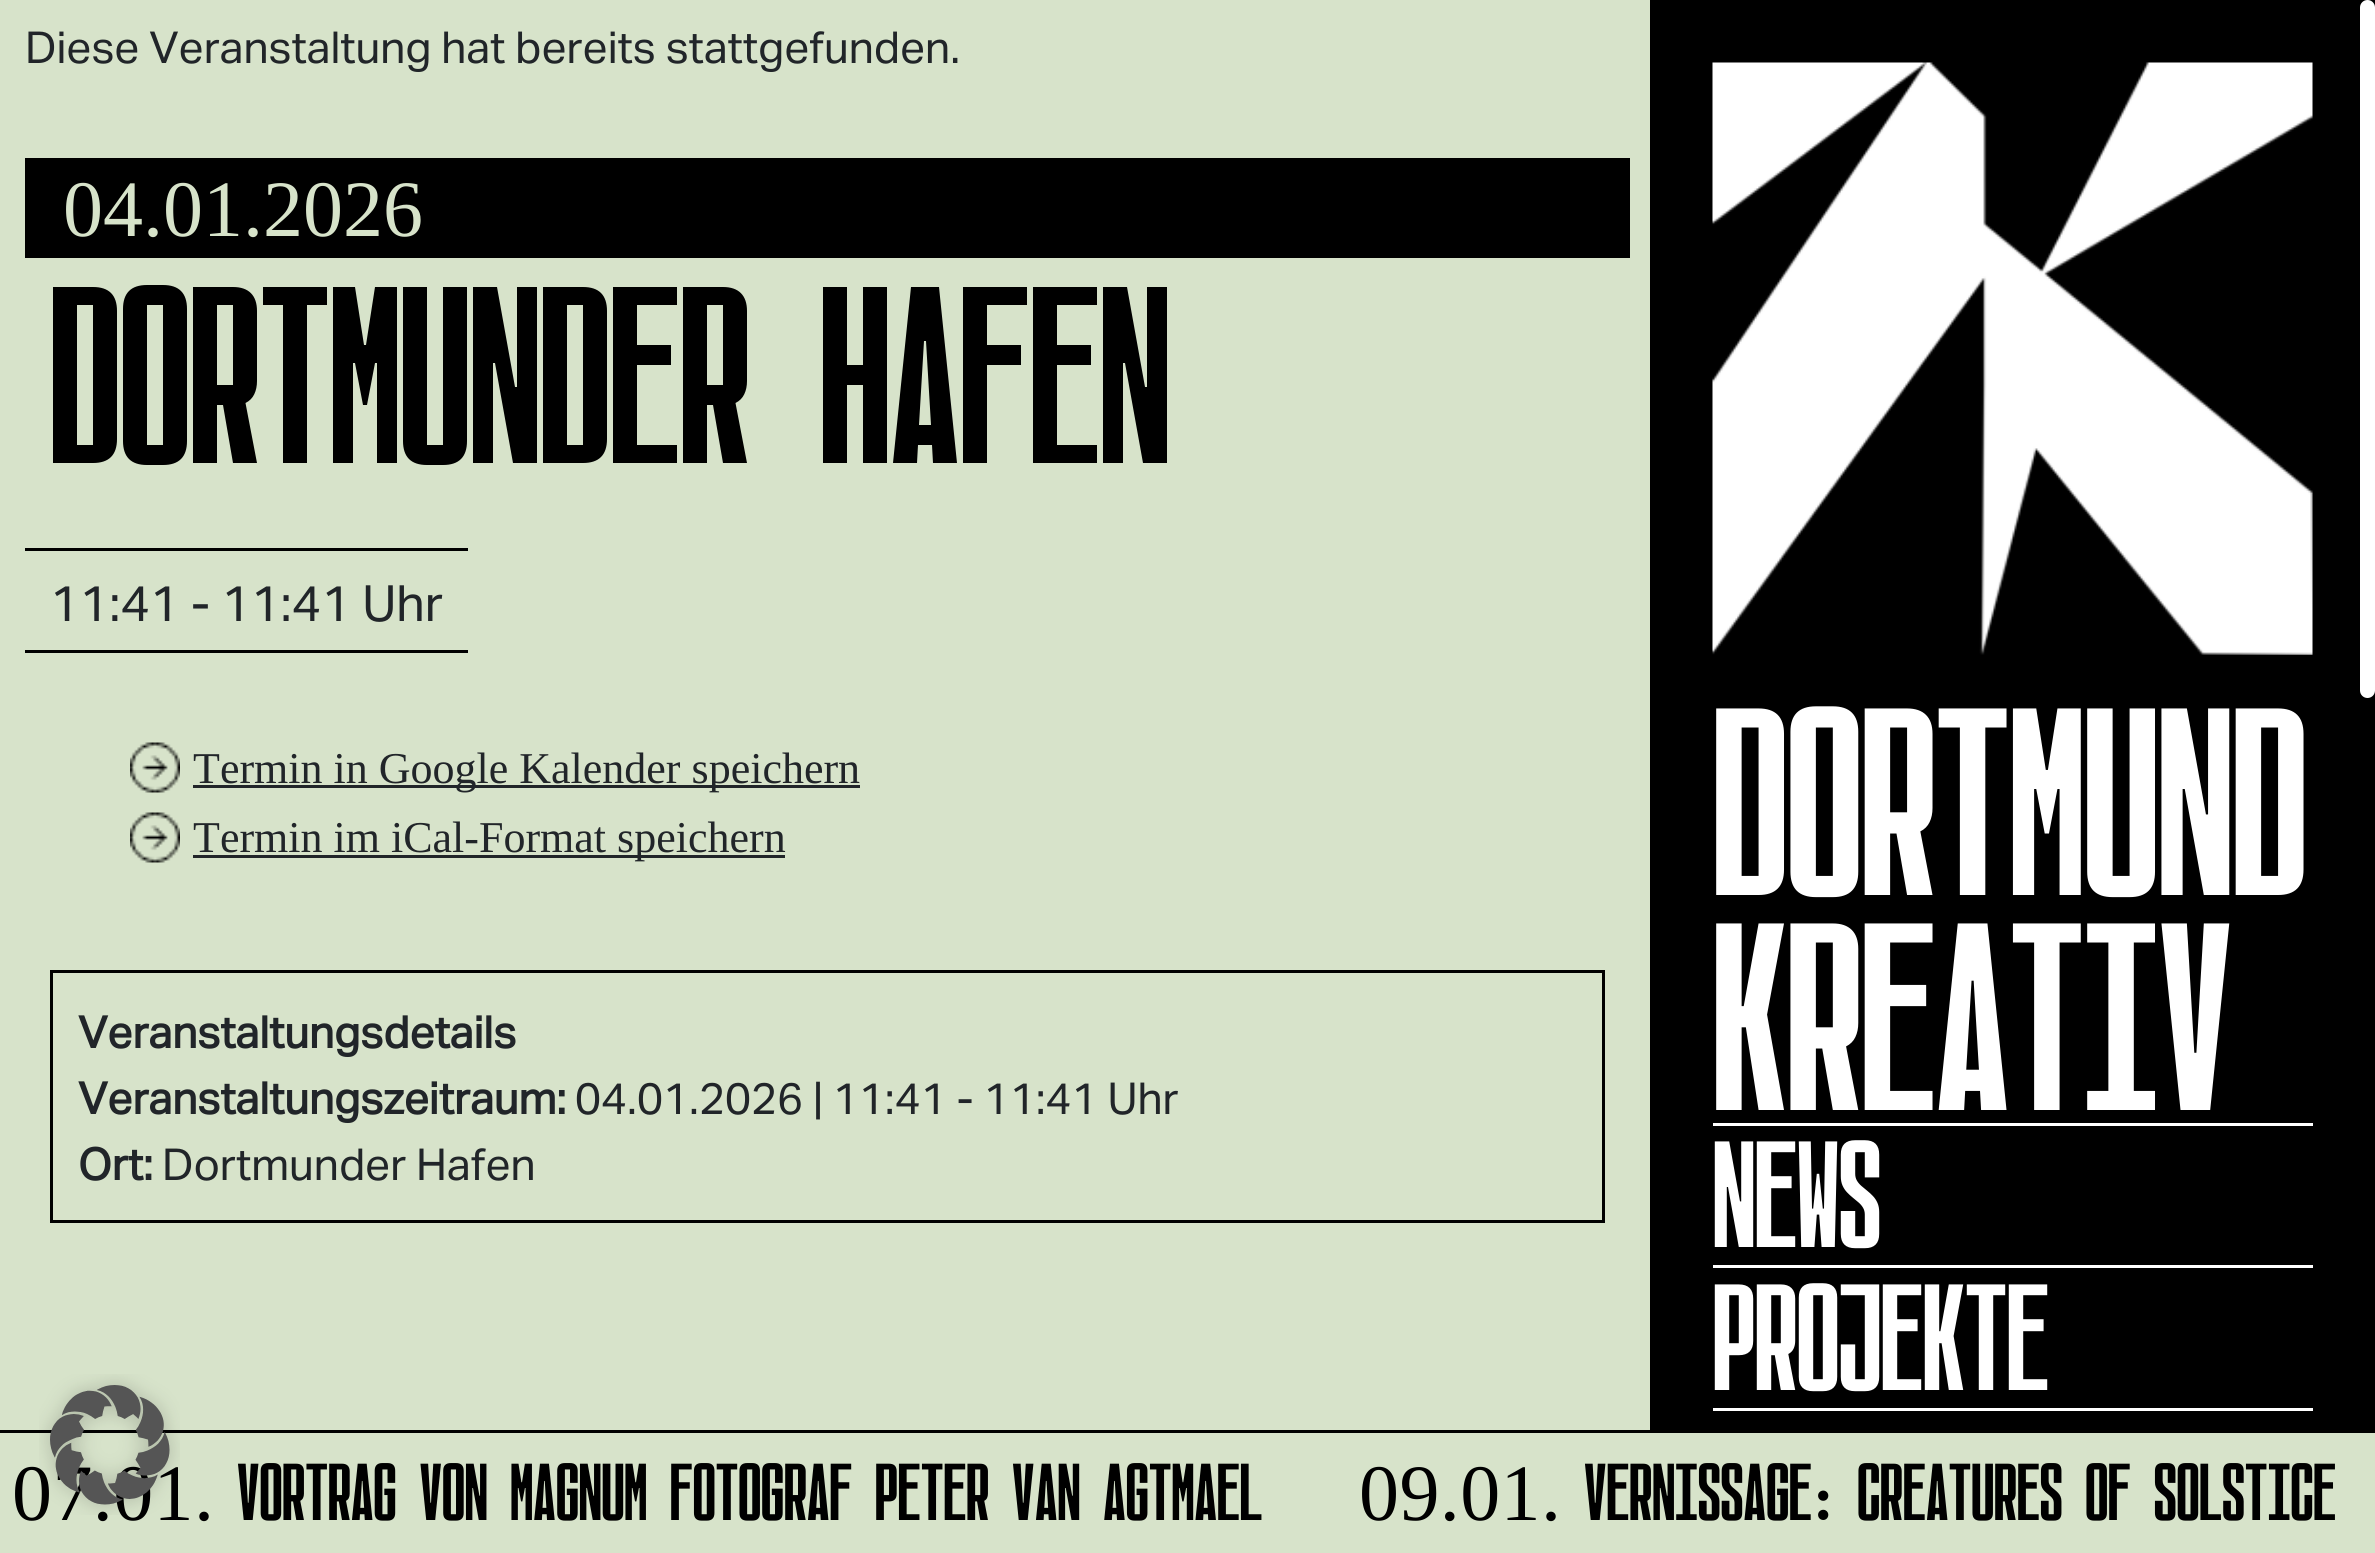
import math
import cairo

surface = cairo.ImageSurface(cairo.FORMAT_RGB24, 2375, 1553)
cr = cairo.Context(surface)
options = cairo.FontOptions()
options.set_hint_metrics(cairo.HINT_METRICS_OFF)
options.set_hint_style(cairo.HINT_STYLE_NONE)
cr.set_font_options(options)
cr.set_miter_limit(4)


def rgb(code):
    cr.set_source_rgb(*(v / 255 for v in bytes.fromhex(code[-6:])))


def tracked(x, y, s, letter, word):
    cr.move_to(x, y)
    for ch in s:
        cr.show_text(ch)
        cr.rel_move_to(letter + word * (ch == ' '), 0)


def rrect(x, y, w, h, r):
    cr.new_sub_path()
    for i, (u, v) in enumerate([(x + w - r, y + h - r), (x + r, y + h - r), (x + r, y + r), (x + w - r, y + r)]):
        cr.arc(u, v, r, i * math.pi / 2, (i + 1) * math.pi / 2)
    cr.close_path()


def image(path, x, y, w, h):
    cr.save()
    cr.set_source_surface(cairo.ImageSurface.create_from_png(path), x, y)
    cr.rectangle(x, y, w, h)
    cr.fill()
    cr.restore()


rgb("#d7e3ca")
cr.paint()
for x, y, w, h, color in [
    (25, 158, 1605, 100, "#000000"),
    (25, 548, 443, 3, "#000000"),
    (25, 650, 443, 3, "#000000"),
]:
    rgb(color)
    cr.rectangle(x, y, w, h)
    cr.fill()
image("img/1.png", 130, 742, 50, 51)
rgb("#212529")
cr.rectangle(193, 785, 667, 3)
cr.fill()
image("img/1.png", 130, 812, 50, 51)
cr.rectangle(193, 855, 592, 3)
cr.fill()
cr.rectangle(51.5, 971.5, 1552, 250)
rgb("#000000")
cr.set_line_width(3)
cr.stroke()
cr.rectangle(1650, 0, 725, 1430)
cr.fill()
image("img/2.png", 1712, 62, 601, 593)
for x, y, w, h, color in [
    (1713, 1123, 600, 3, "#ffffff"),
    (1713, 1265, 600, 3, "#ffffff"),
    (1713, 1408, 600, 3, "#ffffff"),
    (0, 1430, 2375, 3, "#000000"),
]:
    rgb(color)
    cr.rectangle(x, y, w, h)
    cr.fill()
rgb("#ffffff")
rrect(2361.5, 1.5, 12, 695, 6)
cr.fill_preserve()
cr.stroke()
cr.select_font_face("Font")
cr.set_font_size(44)
rgb("#212529")
cr.move_to(25, 63)
cr.show_text("Diese Veranstaltung hat bereits stattgefunden.")
cr.select_font_face("Liberation Serif")
cr.set_font_size(80)
rgb("#d7e3ca")
cr.move_to(63, 236)
cr.show_text("04.01.2026")
cr.select_font_face("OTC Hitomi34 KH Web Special")
cr.set_font_size(250)
rgb("#000000")
cr.move_to(50, 463)
cr.show_text("DORTMUNDER HAFEN")
cr.select_font_face("Font")
cr.set_font_size(50)
rgb("#212529")
cr.move_to(50, 621)
cr.show_text("11:41 - 11:41 Uhr")
cr.select_font_face("Liberation Serif")
cr.set_font_size(44)
cr.move_to(193, 783)
cr.show_text("Termin in Google Kalender speichern")
cr.move_to(193, 852)
cr.show_text("Termin im iCal-Format speichern")
cr.select_font_face("Font", cairo.FONT_SLANT_NORMAL, cairo.FONT_WEIGHT_BOLD)
cr.move_to(78, 1048)
cr.show_text("Veranstaltungsdetails")
cr.move_to(78, 1114)
cr.show_text("Veranstaltungszeitraum:")
cr.select_font_face("Font")
cr.move_to(575, 1114)
cr.show_text("04.01.2026 | 11:41 - 11:41 Uhr")
cr.select_font_face("Font", cairo.FONT_SLANT_NORMAL, cairo.FONT_WEIGHT_BOLD)
cr.move_to(78, 1180)
cr.show_text("Ort:")
cr.select_font_face("Font")
cr.move_to(162, 1180)
cr.show_text("Dortmunder Hafen")
cr.select_font_face("OTC Hitomi34 KH Web Special")
cr.set_font_size(265)
rgb("#ffffff")
cr.move_to(1713, 895)
cr.show_text("DORTMUND")
cr.move_to(1713, 1110)
cr.show_text("KREATIV")
cr.set_font_size(150)
cr.move_to(1713, 1247)
cr.show_text("NEWS")
cr.move_to(1713, 1390)
cr.show_text("PROJEKTE")
cr.select_font_face("Liberation Serif")
cr.set_font_size(80)
rgb("#000000")
tracked(12, 1520, "07.01.", 0.4, 0)
cr.select_font_face("OTC Hitomi34 KH Web Special")
tracked(237, 1520, "VORTRAG VON MAGNUM FOTOGRAF PETER VAN AGTMAEL", 0.4, 0)
cr.select_font_face("Liberation Serif")
tracked(1359, 1520, "09.01.", 0.4, 0)
cr.select_font_face("OTC Hitomi34 KH Web Special")
tracked(1584, 1520, "VERNISSAGE: CREATURES OF SOLSTICE", 0.4, 0)
image("img/3.png", 39, 1374, 141, 141)
surface.write_to_png("page.png")
